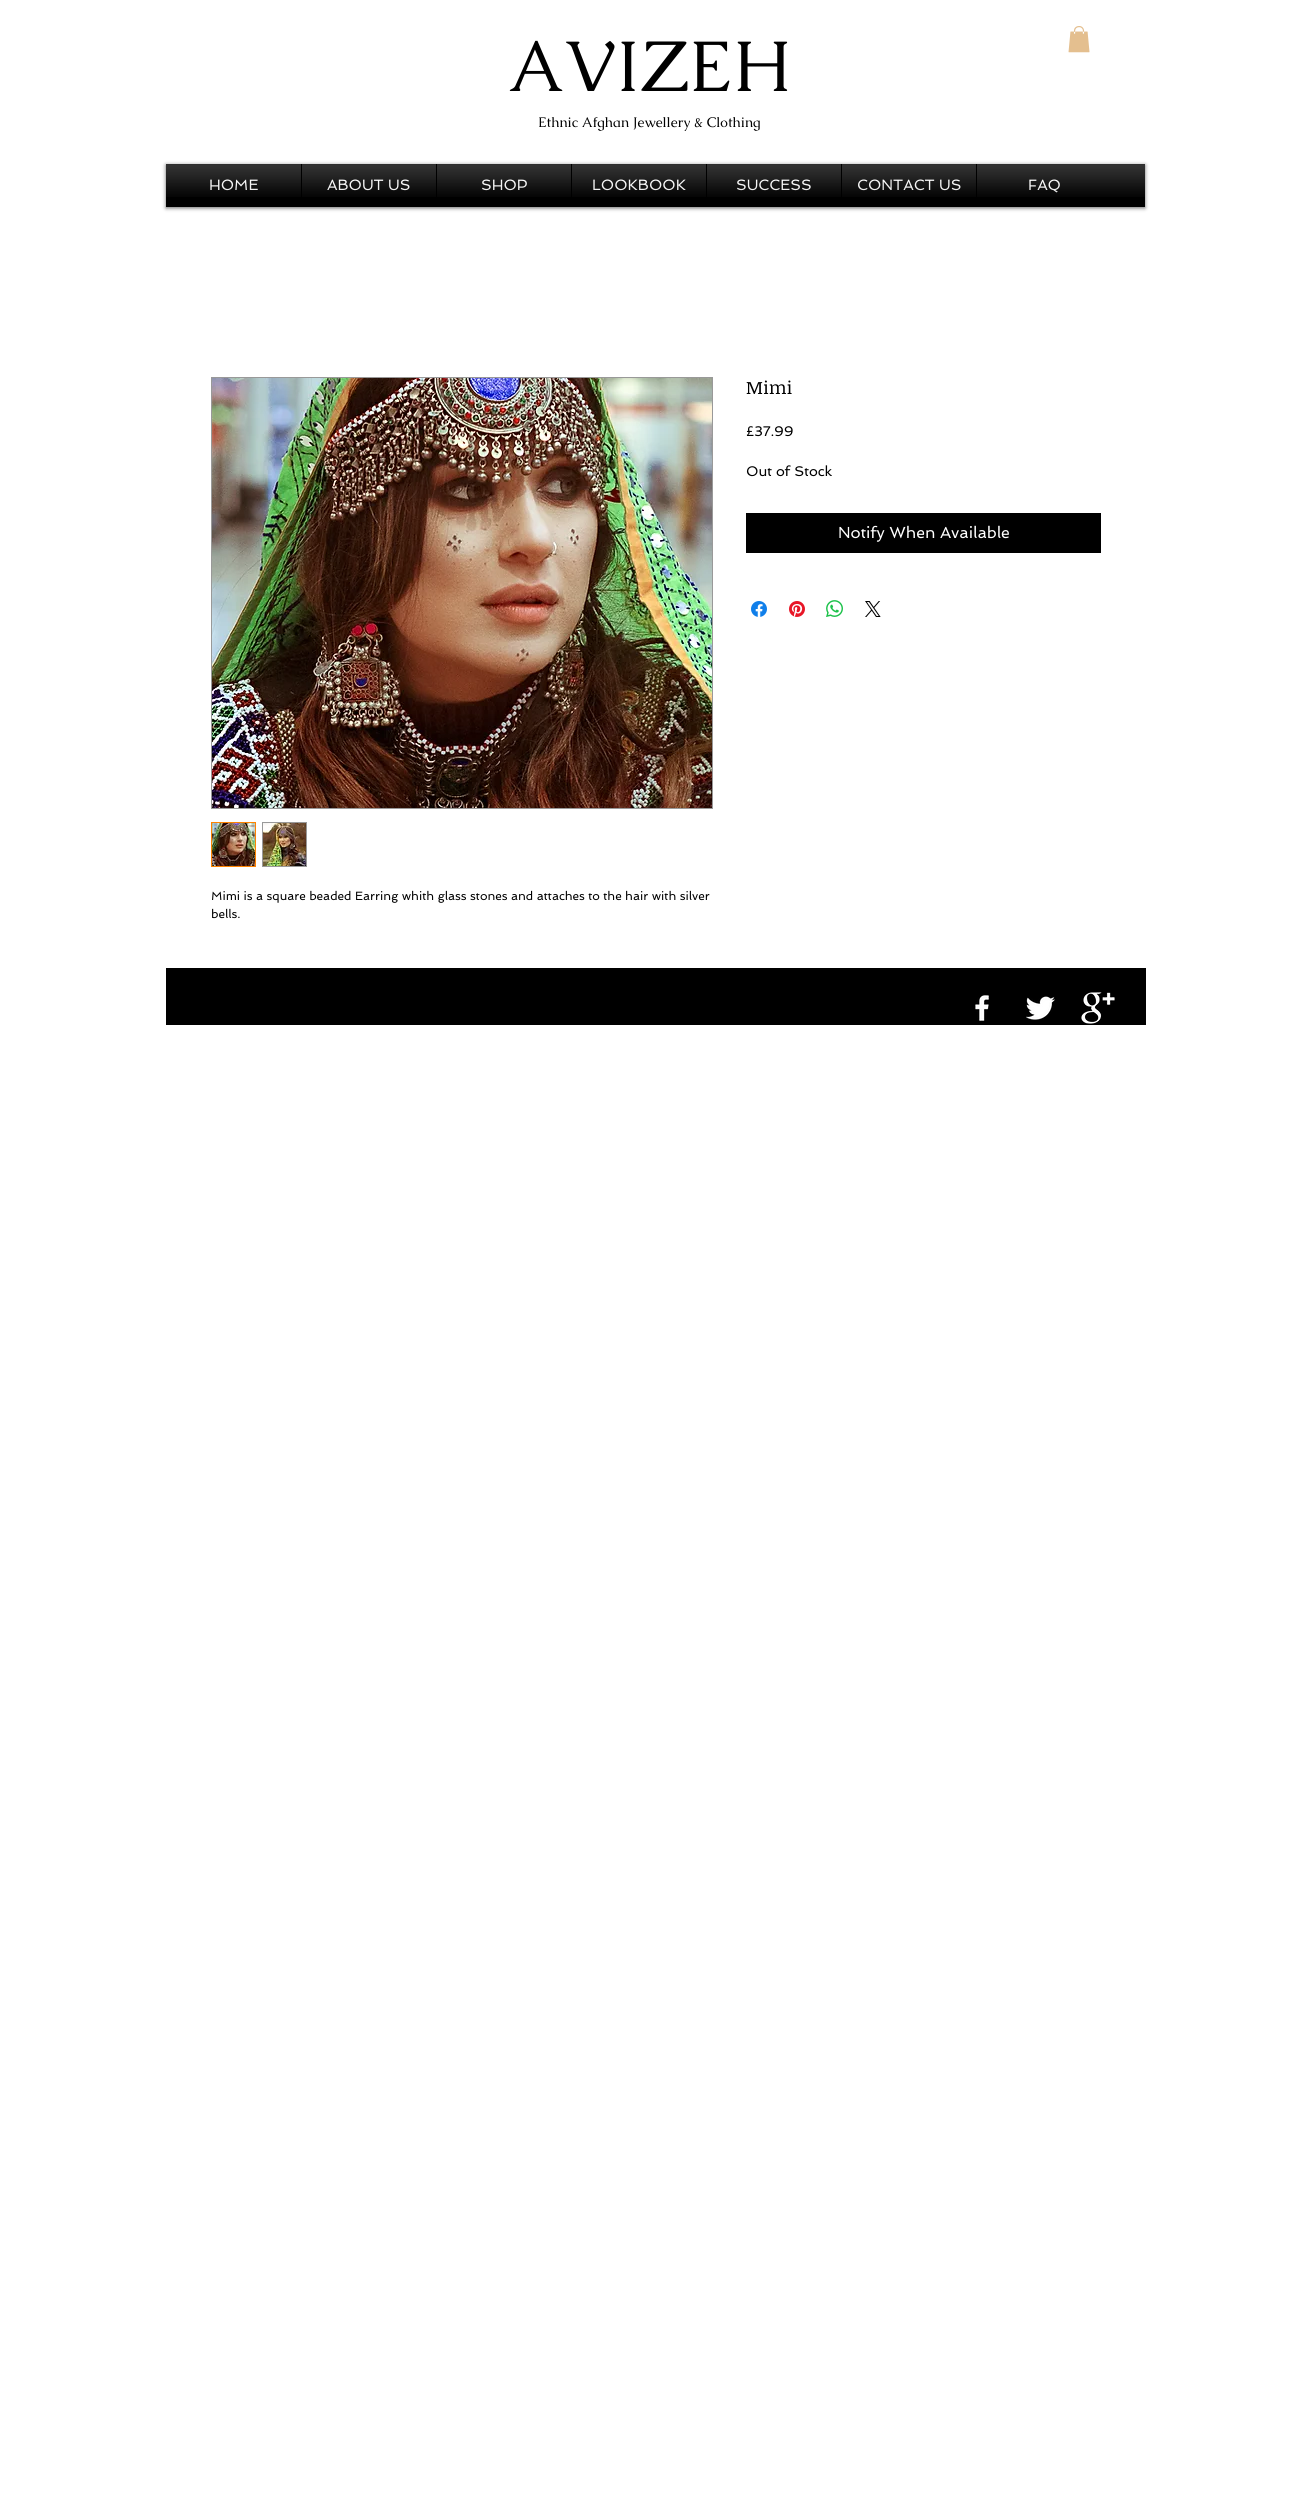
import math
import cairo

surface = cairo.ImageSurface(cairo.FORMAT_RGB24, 1312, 2515)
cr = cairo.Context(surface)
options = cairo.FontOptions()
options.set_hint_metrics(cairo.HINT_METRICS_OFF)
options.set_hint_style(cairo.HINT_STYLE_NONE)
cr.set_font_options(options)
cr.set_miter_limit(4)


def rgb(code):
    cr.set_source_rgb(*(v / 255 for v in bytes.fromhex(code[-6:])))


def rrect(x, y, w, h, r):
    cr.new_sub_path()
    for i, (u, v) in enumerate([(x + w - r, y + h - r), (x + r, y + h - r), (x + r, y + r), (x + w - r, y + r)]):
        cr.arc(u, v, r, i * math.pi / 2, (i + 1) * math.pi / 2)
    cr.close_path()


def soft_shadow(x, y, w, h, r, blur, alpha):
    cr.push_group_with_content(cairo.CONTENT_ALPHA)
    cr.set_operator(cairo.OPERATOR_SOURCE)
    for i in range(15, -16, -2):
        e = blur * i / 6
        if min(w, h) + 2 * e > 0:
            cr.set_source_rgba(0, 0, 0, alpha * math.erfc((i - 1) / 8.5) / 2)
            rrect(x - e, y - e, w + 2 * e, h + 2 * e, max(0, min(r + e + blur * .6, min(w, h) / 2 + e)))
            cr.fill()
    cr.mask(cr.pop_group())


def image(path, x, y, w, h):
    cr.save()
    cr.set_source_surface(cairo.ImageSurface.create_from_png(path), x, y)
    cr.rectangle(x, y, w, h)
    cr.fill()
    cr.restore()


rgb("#ffffff")
cr.paint()
image("img/1.png", 1068, 26, 22, 27)
rgb("#000000")
soft_shadow(166, 165, 979, 43, 0, 2, 0.6)
rgb("#000000")
cr.rectangle(1111, 164, 34, 43)
cr.fill()
image("img/2.png", 1111, 164, 34, 33)
cr.rectangle(166, 164, 945, 43)
cr.fill()
cr.rectangle(746, 513, 355, 40)
cr.fill()
image("img/17.png", 751, 601, 16, 16)
image("img/18.png", 789, 601, 16, 16)
image("img/19.png", 826, 600, 17, 17)
image("img/20.png", 865, 601, 16, 16)
cr.rectangle(211.5, 377.5, 501, 431)
rgb("#999999")
cr.set_line_width(1)
cr.stroke()
image("img/21.png", 212, 378, 500, 430)
cr.rectangle(211.5, 822.5, 44, 44)
rgb("#ff8300")
cr.stroke()
image("img/22.png", 212, 823, 43, 43)
rgb("#999999")
cr.rectangle(262, 822, 45, 45)
cr.fill()
image("img/23.png", 263, 823, 43, 43)
rgb("#000000")
cr.rectangle(166, 968, 980, 57)
cr.fill()
image("img/24.png", 975, 995, 14, 26)
image("img/25.png", 1026, 996, 29, 24)
image("img/26.png", 1081, 992, 34, 32)
cr.select_font_face("Caudex")
cr.set_font_size(72)
cr.move_to(508, 91)
cr.show_text("AVIZEH")
cr.set_font_size(14)
cr.move_to(538, 127)
cr.show_text("Ethnic Afghan Jewellery & Clothing")
cr.select_font_face("Spinnaker")
cr.set_font_size(15)
rgb("#ffffff")
cr.move_to(209, 190)
cr.show_text("HOME")
image("img/3.png", 166, 164, 135, 33)
image("img/4.png", 210, 181, 48, 9)
cr.move_to(327, 190)
cr.show_text("ABOUT US")
image("img/5.png", 302, 164, 134, 33)
image("img/6.png", 327, 181, 83, 9)
cr.move_to(481, 190)
cr.show_text("SHOP")
image("img/7.png", 437, 164, 134, 33)
image("img/8.png", 482, 181, 45, 9)
cr.move_to(592, 190)
cr.show_text("LOOKBOOK")
image("img/9.png", 572, 164, 134, 33)
image("img/10.png", 593, 181, 93, 9)
cr.move_to(736, 190)
cr.show_text("SUCCESS")
image("img/11.png", 707, 164, 134, 33)
image("img/12.png", 737, 181, 74, 9)
cr.move_to(857, 190)
cr.show_text("CONTACT US")
image("img/13.png", 842, 164, 134, 33)
image("img/14.png", 858, 181, 103, 9)
cr.move_to(1028, 190)
cr.show_text("FAQ")
image("img/15.png", 977, 164, 134, 33)
image("img/16.png", 1029, 181, 31, 12)
cr.select_font_face("Noticia Text")
cr.set_font_size(18)
rgb("#000000")
cr.move_to(746, 394)
cr.show_text("Mimi")
cr.select_font_face("Spinnaker")
cr.set_font_size(14)
cr.move_to(746, 436)
cr.show_text("£37.99")
cr.move_to(746, 476)
cr.show_text("Out of Stock")
cr.set_font_size(16)
rgb("#ffffff")
cr.move_to(838, 538)
cr.show_text("Notify When Available")
cr.set_font_size(12)
rgb("#000000")
cr.move_to(211, 900)
cr.show_text("Mimi is a square beaded Earring whith glass stones and attaches to the hair with silver")
cr.move_to(211, 918)
cr.show_text("bells.")
surface.write_to_png("page.png")
